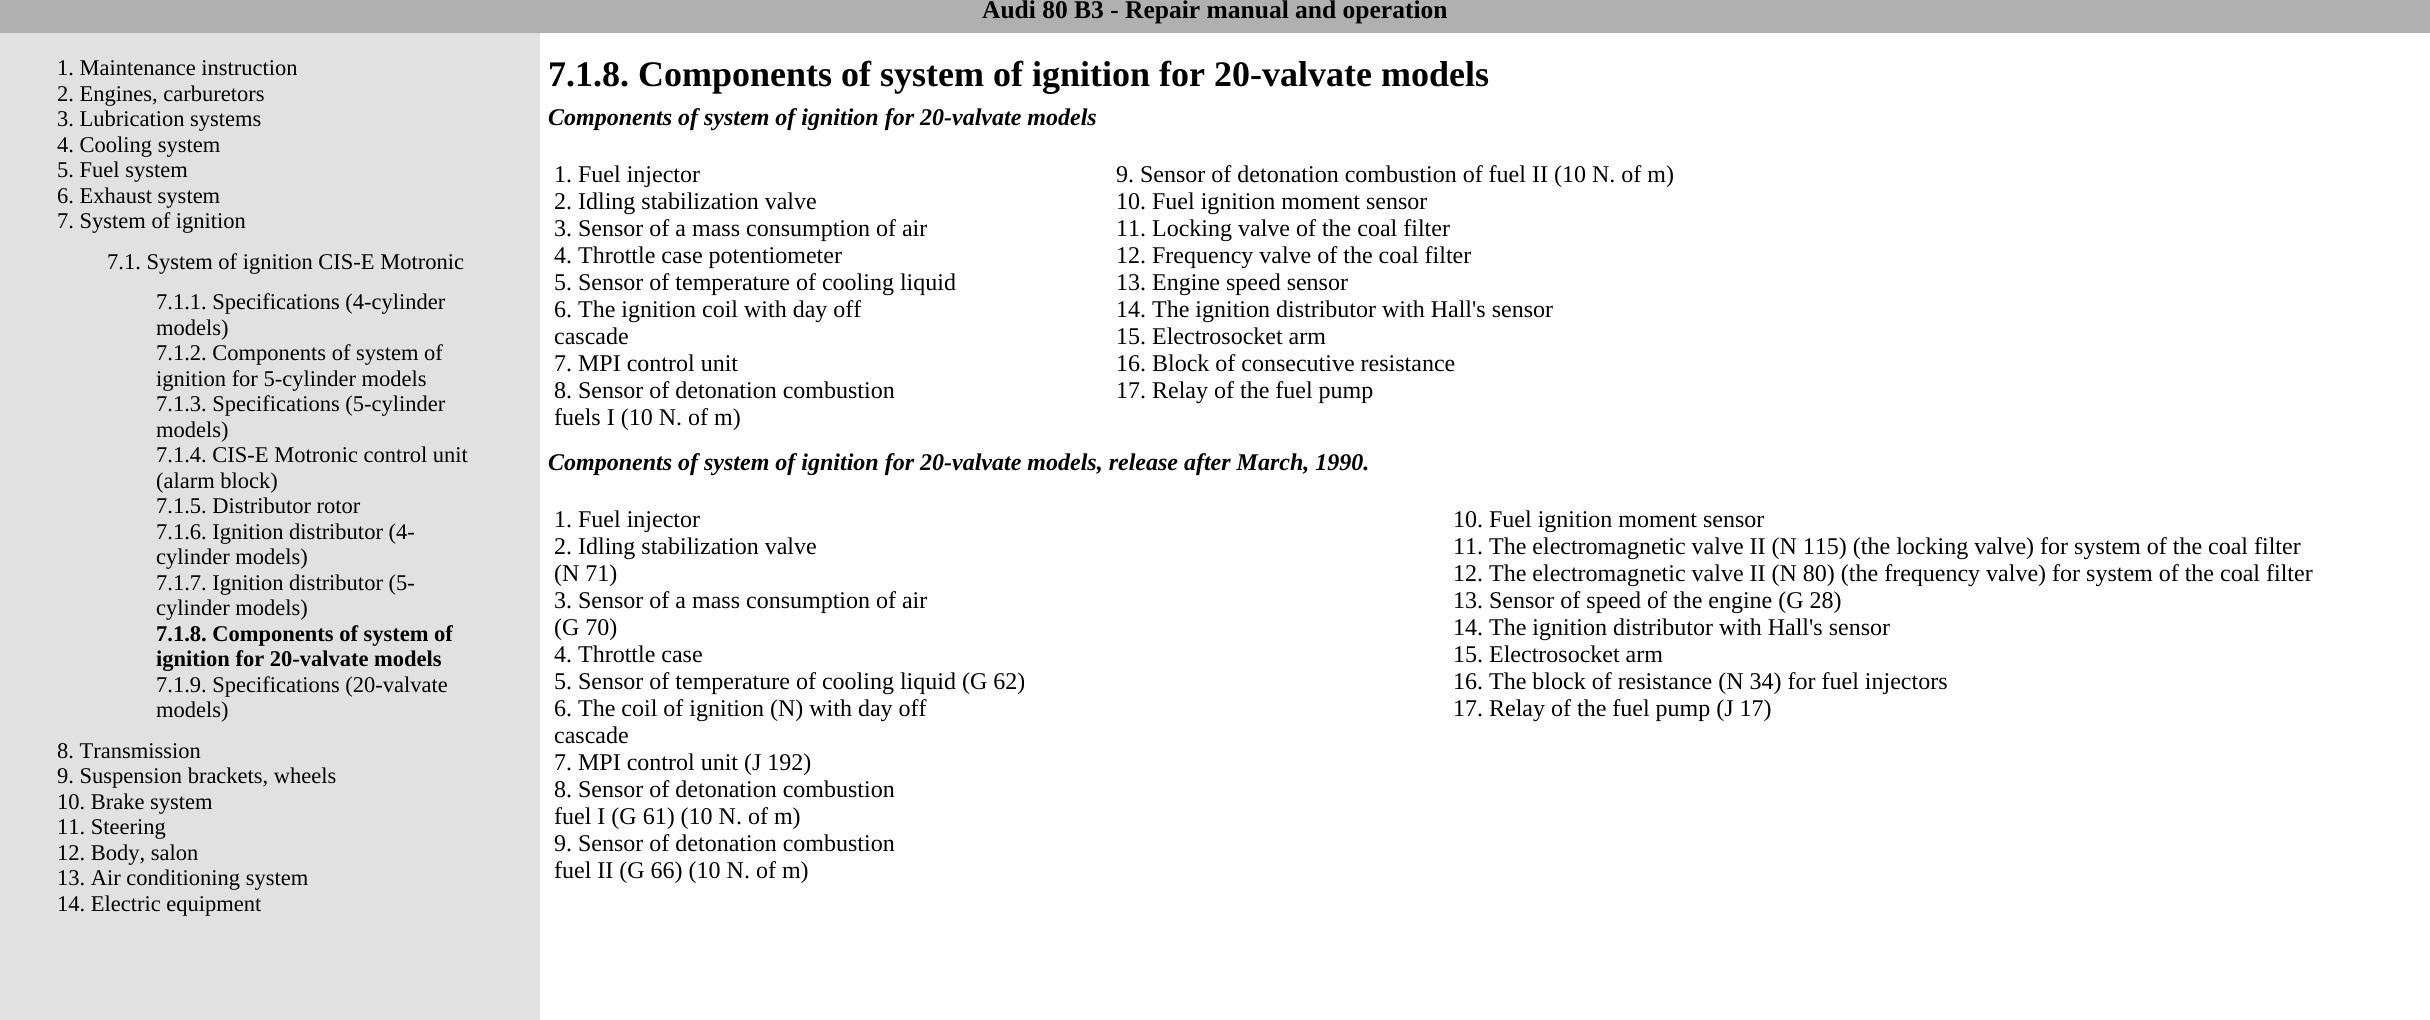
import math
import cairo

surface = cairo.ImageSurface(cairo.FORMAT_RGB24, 2430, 1020)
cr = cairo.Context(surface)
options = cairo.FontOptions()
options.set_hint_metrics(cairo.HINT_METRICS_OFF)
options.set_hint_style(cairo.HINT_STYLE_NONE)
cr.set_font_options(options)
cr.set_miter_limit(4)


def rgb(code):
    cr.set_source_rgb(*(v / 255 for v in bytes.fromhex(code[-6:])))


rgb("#ffffff")
cr.paint()
rgb("#b0b0b0")
cr.rectangle(0, 0, 2430, 33)
cr.fill()
rgb("#e1e1e1")
cr.rectangle(0, 33, 540, 987)
cr.fill()
cr.select_font_face("Liberation Serif", cairo.FONT_SLANT_NORMAL, cairo.FONT_WEIGHT_BOLD)
cr.set_font_size(25.5)
rgb("#000000")
cr.move_to(982, 18)
cr.show_text("Audi 80 B3 - Repair manual and operation")
cr.select_font_face("Liberation Serif")
cr.set_font_size(22.5)
for x, y, s in [
    (57, 75, "1. Maintenance instruction"),
    (57, 101, "2. Engines, carburetors"),
    (57, 126, "3. Lubrication systems"),
    (57, 152, "4. Cooling system"),
    (57, 177, "5. Fuel system"),
    (57, 203, "6. Exhaust system"),
    (57, 228, "7. System of ignition"),
    (107, 269, "7.1. System of ignition CIS-E Motronic"),
    (156, 309, "7.1.1. Specifications (4-cylinder"),
    (156, 335, "models)"),
    (156, 360, "7.1.2. Components of system of"),
    (156, 386, "ignition for 5-cylinder models"),
    (156, 411, "7.1.3. Specifications (5-cylinder"),
    (156, 437, "models)"),
    (156, 462, "7.1.4. CIS-E Motronic control unit"),
    (156, 488, "(alarm block)"),
    (156, 513, "7.1.5. Distributor rotor"),
    (156, 539, "7.1.6. Ignition distributor (4-"),
    (156, 564, "cylinder models)"),
    (156, 590, "7.1.7. Ignition distributor (5-"),
    (156, 615, "cylinder models)"),
]:
    cr.move_to(x, y)
    cr.show_text(s)
cr.select_font_face("Liberation Serif", cairo.FONT_SLANT_NORMAL, cairo.FONT_WEIGHT_BOLD)
cr.move_to(156, 641)
cr.show_text("7.1.8. Components of system of")
cr.move_to(156, 666)
cr.show_text("ignition for 20-valvate models")
cr.select_font_face("Liberation Serif")
for x, y, s in [
    (156, 692, "7.1.9. Specifications (20-valvate"),
    (156, 717, "models)"),
    (57, 758, "8. Transmission"),
    (57, 783, "9. Suspension brackets, wheels"),
    (57, 809, "10. Brake system"),
    (57, 834, "11. Steering"),
    (57, 860, "12. Body, salon"),
    (57, 885, "13. Air conditioning system"),
    (57, 911, "14. Electric equipment"),
]:
    cr.move_to(x, y)
    cr.show_text(s)
cr.select_font_face("Liberation Serif", cairo.FONT_SLANT_NORMAL, cairo.FONT_WEIGHT_BOLD)
cr.set_font_size(36)
cr.move_to(548, 86)
cr.show_text("7.1.8. Components of system of ignition for 20-valvate models")
cr.select_font_face("Liberation Serif", cairo.FONT_SLANT_ITALIC, cairo.FONT_WEIGHT_BOLD)
cr.set_font_size(24)
cr.move_to(548, 125)
cr.show_text("Components of system of ignition for 20-valvate models")
cr.select_font_face("Liberation Serif")
for x, y, s in [
    (554, 182, "1. Fuel injector"),
    (554, 209, "2. Idling stabilization valve"),
    (554, 236, "3. Sensor of a mass consumption of air"),
    (554, 263, "4. Throttle case potentiometer"),
    (554, 290, "5. Sensor of temperature of cooling liquid"),
    (554, 317, "6. The ignition coil with day off"),
    (554, 344, "cascade"),
    (554, 371, "7. MPI control unit"),
    (554, 398, "8. Sensor of detonation combustion"),
    (554, 425, "fuels I (10 N. of m)"),
    (1116, 182, "9. Sensor of detonation combustion of fuel II (10 N. of m)"),
    (1116, 209, "10. Fuel ignition moment sensor"),
    (1116, 236, "11. Locking valve of the coal filter"),
    (1116, 263, "12. Frequency valve of the coal filter"),
    (1116, 290, "13. Engine speed sensor"),
    (1116, 317, "14. The ignition distributor with Hall's sensor"),
    (1116, 344, "15. Electrosocket arm"),
    (1116, 371, "16. Block of consecutive resistance"),
    (1116, 398, "17. Relay of the fuel pump"),
]:
    cr.move_to(x, y)
    cr.show_text(s)
cr.select_font_face("Liberation Serif", cairo.FONT_SLANT_ITALIC, cairo.FONT_WEIGHT_BOLD)
cr.move_to(548, 470)
cr.show_text("Components of system of ignition for 20-valvate models, release after March, 1990.")
cr.select_font_face("Liberation Serif")
for x, y, s in [
    (554, 527, "1. Fuel injector"),
    (554, 554, "2. Idling stabilization valve"),
    (554, 581, "(N 71)"),
    (554, 608, "3. Sensor of a mass consumption of air"),
    (554, 635, "(G 70)"),
    (554, 662, "4. Throttle case"),
    (554, 689, "5. Sensor of temperature of cooling liquid (G 62)"),
    (554, 716, "6. The coil of ignition (N) with day off"),
    (554, 743, "cascade"),
    (554, 770, "7. MPI control unit (J 192)"),
    (554, 797, "8. Sensor of detonation combustion"),
    (554, 824, "fuel I (G 61) (10 N. of m)"),
    (554, 851, "9. Sensor of detonation combustion"),
    (554, 878, "fuel II (G 66) (10 N. of m)"),
    (1453, 527, "10. Fuel ignition moment sensor"),
    (1453, 554, "11. The electromagnetic valve II (N 115) (the locking valve) for system of the coal filter"),
    (1453, 581, "12. The electromagnetic valve II (N 80) (the frequency valve) for system of the coal filter"),
    (1453, 608, "13. Sensor of speed of the engine (G 28)"),
    (1453, 635, "14. The ignition distributor with Hall's sensor"),
    (1453, 662, "15. Electrosocket arm"),
    (1453, 689, "16. The block of resistance (N 34) for fuel injectors"),
    (1453, 716, "17. Relay of the fuel pump (J 17)"),
]:
    cr.move_to(x, y)
    cr.show_text(s)
surface.write_to_png("page.png")
